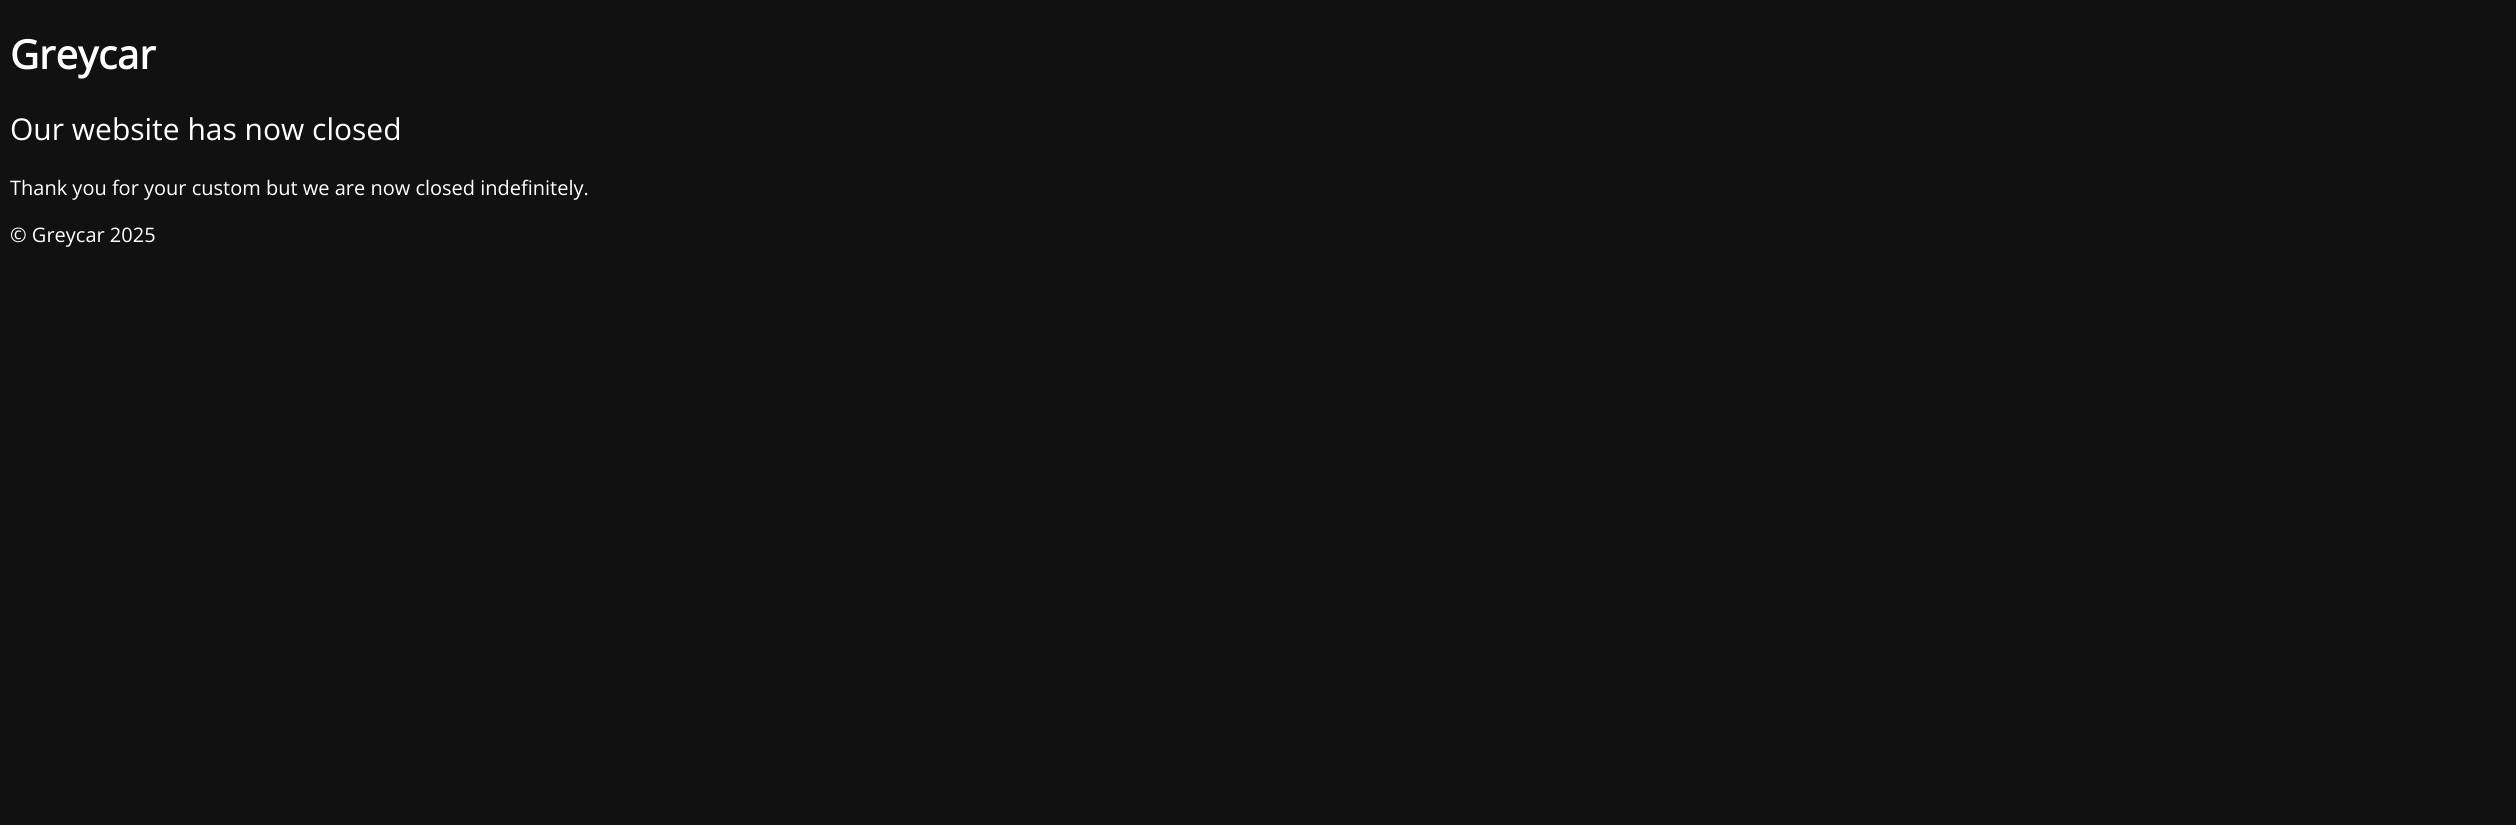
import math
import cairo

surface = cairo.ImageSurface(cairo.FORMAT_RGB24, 2516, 825)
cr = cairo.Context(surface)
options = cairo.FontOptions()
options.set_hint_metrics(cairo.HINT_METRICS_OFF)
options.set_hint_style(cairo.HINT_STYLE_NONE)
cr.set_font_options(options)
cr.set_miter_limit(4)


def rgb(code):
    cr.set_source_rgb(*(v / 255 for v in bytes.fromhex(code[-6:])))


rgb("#111111")
cr.paint()
cr.select_font_face("Open Sans", cairo.FONT_SLANT_NORMAL, cairo.FONT_WEIGHT_BOLD)
cr.set_font_size(40)
rgb("#ffffff")
cr.move_to(10, 69)
cr.show_text("Greycar")
cr.select_font_face("Open Sans")
cr.set_font_size(30)
cr.move_to(10, 140)
cr.show_text("Our website has now closed")
cr.set_font_size(20)
cr.move_to(10, 195)
cr.show_text("Thank you for your custom but we are now closed indefinitely.")
cr.move_to(10, 242)
cr.show_text("© Greycar 2025")
surface.write_to_png("page.png")
